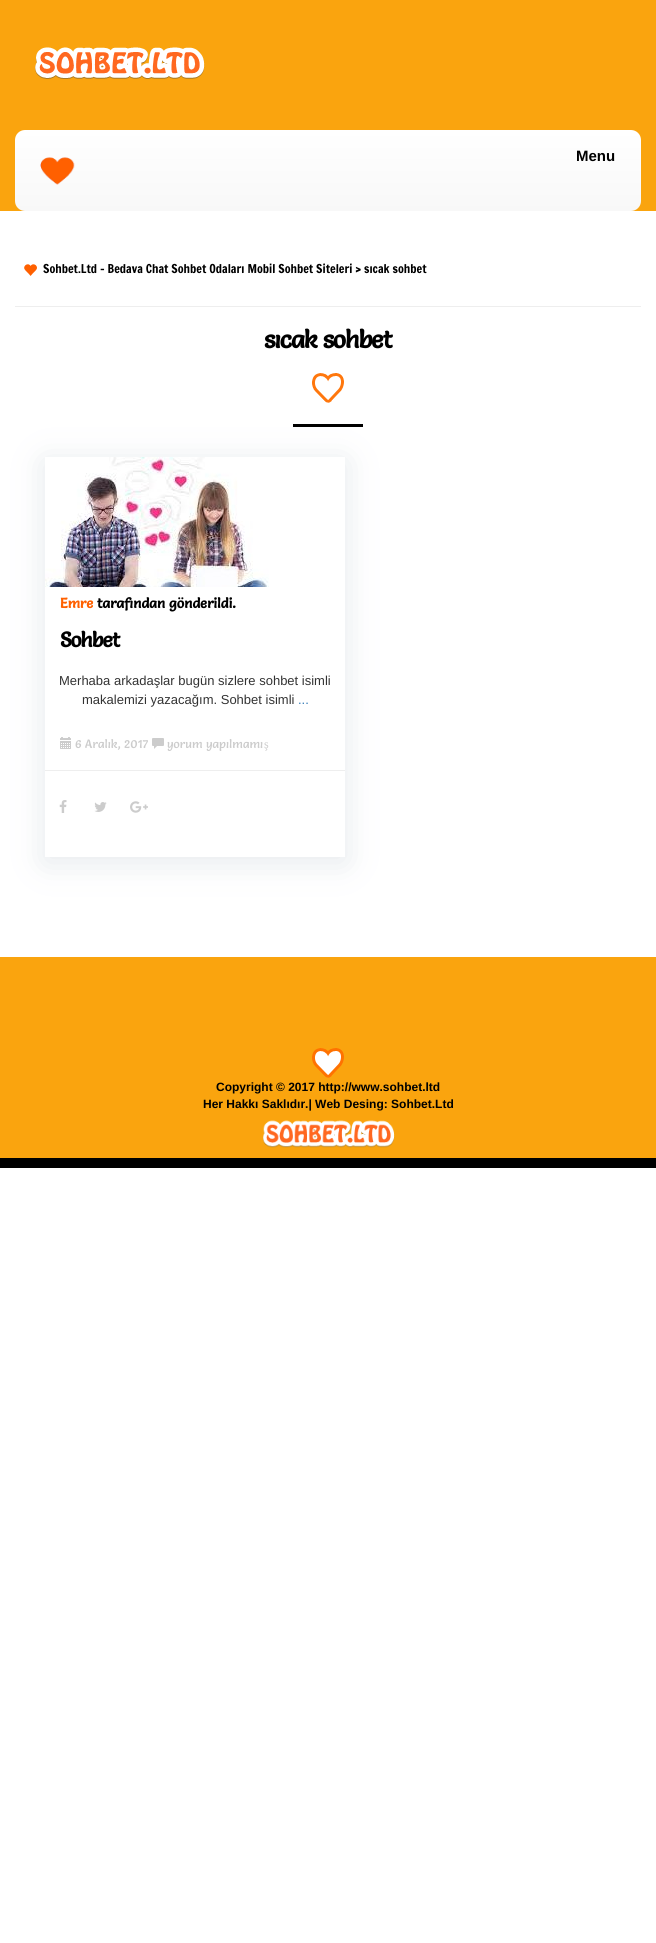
import math
import cairo

surface = cairo.ImageSurface(cairo.FORMAT_RGB24, 656, 1943)
cr = cairo.Context(surface)
options = cairo.FontOptions()
options.set_hint_metrics(cairo.HINT_METRICS_OFF)
options.set_hint_style(cairo.HINT_STYLE_NONE)
cr.set_font_options(options)
cr.set_miter_limit(4)


def rgb(code):
    cr.set_source_rgb(*(v / 255 for v in bytes.fromhex(code[-6:])))


def tracked(x, y, s, letter, word):
    cr.move_to(x, y)
    for ch in s:
        cr.show_text(ch)
        cr.rel_move_to(letter + word * (ch == ' '), 0)


def rrect(x, y, w, h, r):
    cr.new_sub_path()
    for i, (u, v) in enumerate([(x + w - r, y + h - r), (x + r, y + h - r), (x + r, y + r), (x + w - r, y + r)]):
        cr.arc(u, v, r, i * math.pi / 2, (i + 1) * math.pi / 2)
    cr.close_path()


def soft_shadow(x, y, w, h, r, blur, alpha):
    cr.push_group_with_content(cairo.CONTENT_ALPHA)
    cr.set_operator(cairo.OPERATOR_SOURCE)
    for i in range(15, -16, -2):
        e = blur * i / 6
        if min(w, h) + 2 * e > 0:
            cr.set_source_rgba(0, 0, 0, alpha * math.erfc((i - 1) / 8.5) / 2)
            rrect(x - e, y - e, w + 2 * e, h + 2 * e, max(0, min(r + e + blur * .6, min(w, h) / 2 + e)))
            cr.fill()
    cr.mask(cr.pop_group())


def image(path, x, y, w, h):
    cr.save()
    cr.set_source_surface(cairo.ImageSurface.create_from_png(path), x, y)
    cr.rectangle(x, y, w, h)
    cr.fill()
    cr.restore()


rgb("#ffffff")
cr.paint()
rgb("#faa40e")
cr.rectangle(0, 0, 656, 211)
cr.fill()
image("img/1.png", 35, 47, 170, 32)
gradient = cairo.LinearGradient(328, 130, 328, 211)
gradient.add_color_stop_rgba(0, 1, 1, 1, 1)
gradient.add_color_stop_rgba(1, 0.973, 0.973, 0.973, 1)
cr.set_source(gradient)
rrect(15, 130, 626, 81, 10)
cr.fill()
image("img/2.png", 40, 157, 35, 28)
image("img/3.png", 24, 264, 13, 12)
rgb("#eeeeee")
cr.rectangle(15, 306, 626, 1)
cr.fill()
image("img/4.png", 312, 373, 32, 30)
rgb("#000000")
cr.rectangle(293, 424, 70, 3)
cr.fill()
cr.save()
cr.set_fill_rule(cairo.FILL_RULE_EVEN_ODD)
cr.new_path()
cr.move_to(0, 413)
cr.line_to(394, 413)
cr.line_to(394, 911)
cr.line_to(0, 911)
cr.close_path()
cr.move_to(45, 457)
cr.line_to(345, 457)
cr.line_to(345, 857)
cr.line_to(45, 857)
cr.close_path()
cr.clip()
rgb("#677a8d")
soft_shadow(45, 462, 300, 400, 0, 16, 0.17)
cr.restore()
image("img/5.png", 45, 457, 224, 130)
image("img/6.png", 60, 737, 11, 12)
image("img/7.png", 152, 738, 12, 11)
rgb("#eeeeee")
cr.rectangle(45, 770, 300, 1)
cr.fill()
image("img/8.png", 59, 800, 8, 13)
image("img/9.png", 94, 802, 13, 10)
image("img/10.png", 130, 801, 18, 12)
rgb("#faa40e")
cr.rectangle(0, 957, 656, 201)
cr.fill()
rgb("#000000")
cr.rectangle(0, 1158, 656, 10)
cr.fill()
image("img/11.png", 312, 1048, 32, 30)
image("img/12.png", 263, 1120, 132, 28)
cr.select_font_face("Liberation Sans", cairo.FONT_SLANT_NORMAL, cairo.FONT_WEIGHT_BOLD)
cr.set_font_size(15)
cr.move_to(576, 161)
cr.show_text("Menu")
cr.select_font_face("Francois One")
cr.set_font_size(12)
cr.move_to(43, 273)
cr.show_text("Sohbet.Ltd - Bedava Chat Sohbet Odaları Mobil Sohbet Siteleri > sıcak sohbet")
cr.select_font_face("Salsa", cairo.FONT_SLANT_NORMAL, cairo.FONT_WEIGHT_BOLD)
cr.set_font_size(25)
tracked(264, 348, "sıcak sohbet", -1, 0)
cr.set_font_size(14)
rgb("#ff6000")
cr.move_to(60, 608)
cr.show_text("Emre")
rgb("#000000")
cr.move_to(97, 608)
cr.show_text("tarafından gönderildi.")
cr.set_font_size(21)
tracked(60, 647, "Sohbet", -1, 0)
cr.select_font_face("Liberation Sans")
cr.set_font_size(13)
rgb("#333333")
cr.move_to(59, 685)
cr.show_text("Merhaba arkadaşlar bugün sizlere sohbet isimli")
cr.move_to(82, 704)
cr.show_text("makalemizi yazacağım. Sohbet isimli")
rgb("#337ab7")
cr.move_to(298, 704)
cr.show_text("...")
cr.select_font_face("Salsa")
cr.set_font_size(12)
rgb("#cccccc")
cr.move_to(75, 748)
cr.show_text("6 Aralık, 2017")
cr.move_to(167, 748)
cr.show_text("yorum yapılmamı")
cr.select_font_face("Liberation Serif")
cr.move_to(264, 748)
cr.show_text("ş")
cr.select_font_face("Liberation Sans", cairo.FONT_SLANT_NORMAL, cairo.FONT_WEIGHT_BOLD)
rgb("#000000")
cr.move_to(216, 1091)
cr.show_text("Copyright © 2017 http://www.sohbet.ltd")
cr.move_to(203, 1108)
cr.show_text("Her Hakkı Saklıdır.| Web Desing: Sohbet.Ltd")
surface.write_to_png("page.png")
